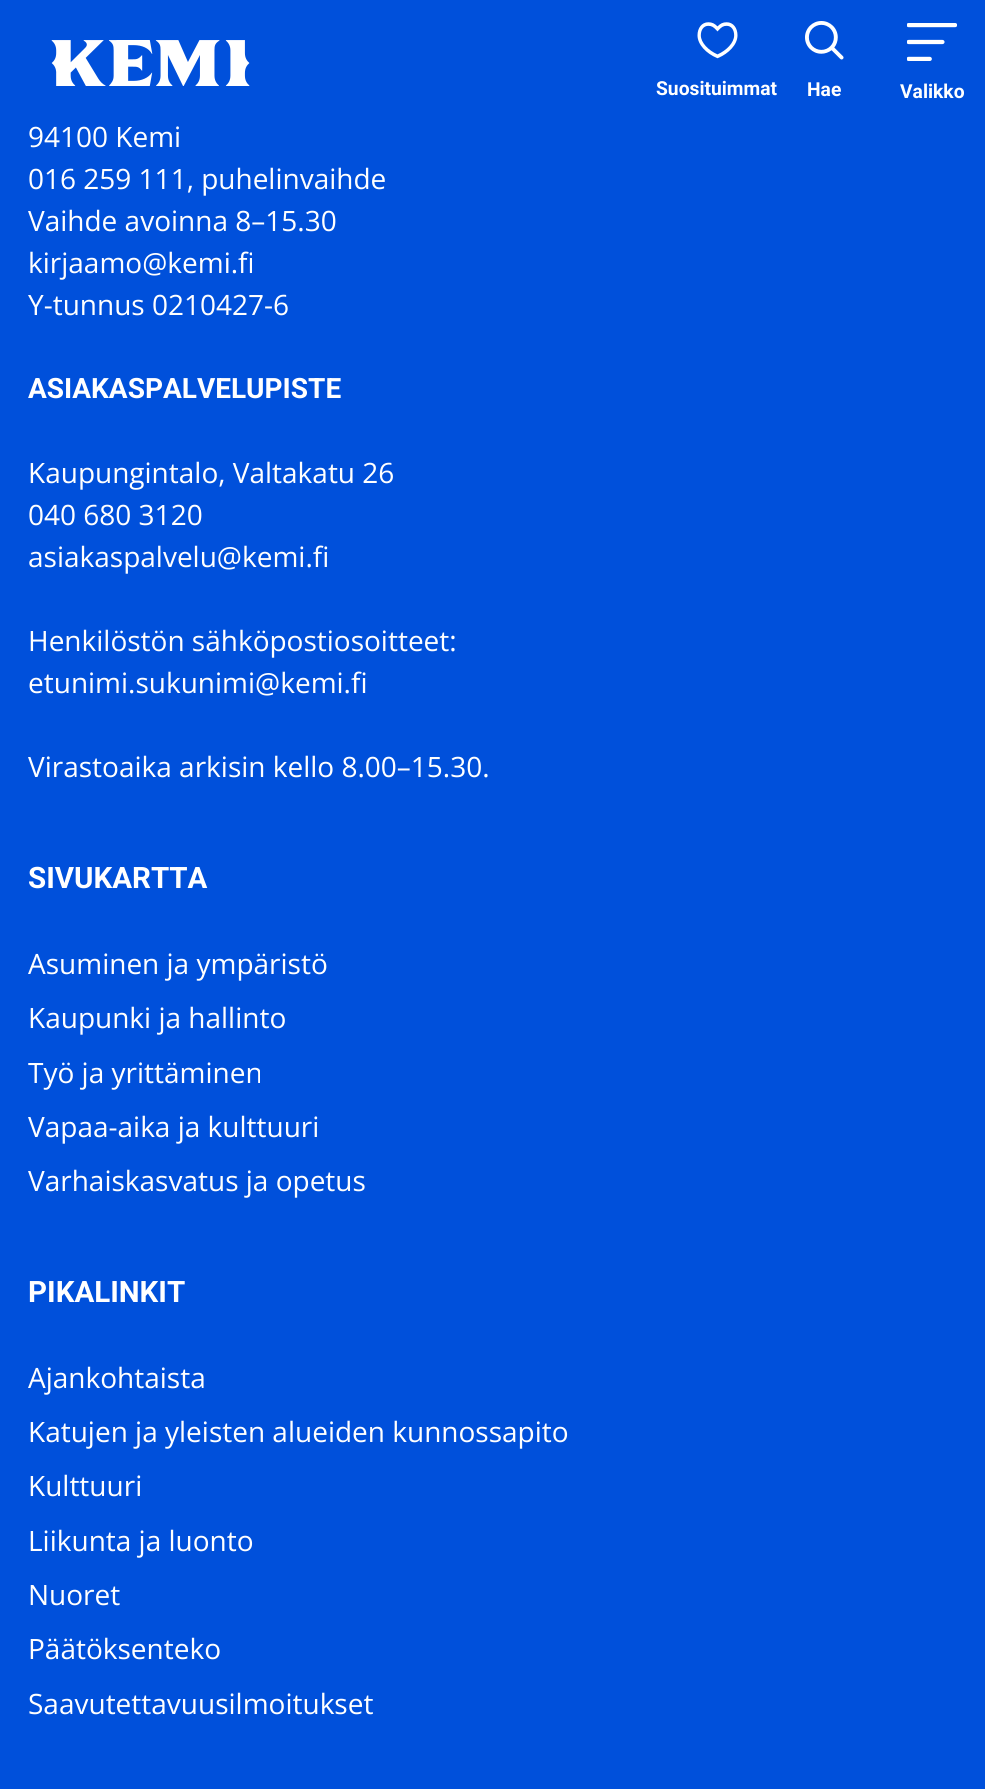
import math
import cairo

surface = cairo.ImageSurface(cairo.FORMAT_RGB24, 985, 1789)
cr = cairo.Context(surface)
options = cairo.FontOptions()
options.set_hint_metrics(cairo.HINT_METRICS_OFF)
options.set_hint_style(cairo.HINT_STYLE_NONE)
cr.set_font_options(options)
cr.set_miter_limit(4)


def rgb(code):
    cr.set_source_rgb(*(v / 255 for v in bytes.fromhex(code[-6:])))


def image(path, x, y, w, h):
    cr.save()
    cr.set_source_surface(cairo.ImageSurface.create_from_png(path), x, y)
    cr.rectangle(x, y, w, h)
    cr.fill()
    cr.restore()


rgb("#0050db")
cr.paint()
image("img/1.png", 51, 40, 199, 46)
image("img/2.png", 697, 22, 41, 37)
image("img/3.png", 805, 21, 39, 39)
image("img/4.png", 907, 23, 50, 38)
cr.select_font_face("Roboto", cairo.FONT_SLANT_NORMAL, cairo.FONT_WEIGHT_BOLD)
cr.set_font_size(19.25)
rgb("#ffffff")
for x, y, s in [
    (656, 95, "Suosituimmat"),
    (807, 96, "Hae"),
    (900, 98, "Valikko"),
]:
    cr.move_to(x, y)
    cr.show_text(s)
cr.select_font_face("Open Sans")
cr.set_font_size(28)
for x, y, s in [
    (28, 147, "94100 Kemi"),
    (28, 189, "016 259 111, puhelinvaihde"),
    (28, 231, "Vaihde avoinna 8–15.30"),
    (28, 273, "kirjaamo@kemi.fi"),
    (28, 315, "Y-tunnus 0210427-6"),
]:
    cr.move_to(x, y)
    cr.show_text(s)
cr.select_font_face("Roboto", cairo.FONT_SLANT_NORMAL, cairo.FONT_WEIGHT_BOLD)
cr.move_to(28, 398)
cr.show_text("ASIAKASPALVELUPISTE")
cr.select_font_face("Open Sans")
for x, y, s in [
    (28, 483, "Kaupungintalo, Valtakatu 26"),
    (28, 525, "040 680 3120"),
    (28, 567, "asiakaspalvelu@kemi.fi"),
    (28, 651, "Henkilöstön sähköpostiosoitteet:"),
    (28, 693, "etunimi.sukunimi@kemi.fi"),
    (28, 777, "Virastoaika arkisin kello 8.00–15.30."),
]:
    cr.move_to(x, y)
    cr.show_text(s)
cr.select_font_face("Roboto", cairo.FONT_SLANT_NORMAL, cairo.FONT_WEIGHT_BOLD)
cr.set_font_size(29.5)
cr.move_to(28, 888)
cr.show_text("SIVUKARTTA")
cr.select_font_face("Open Sans")
cr.set_font_size(28)
for x, y, s in [
    (28, 974, "Asuminen ja ympäristö"),
    (28, 1028, "Kaupunki ja hallinto"),
    (28, 1083, "Työ ja yrittäminen"),
    (28, 1137, "Vapaa-aika ja kulttuuri"),
    (28, 1191, "Varhaiskasvatus ja opetus"),
]:
    cr.move_to(x, y)
    cr.show_text(s)
cr.select_font_face("Roboto", cairo.FONT_SLANT_NORMAL, cairo.FONT_WEIGHT_BOLD)
cr.set_font_size(29.5)
cr.move_to(28, 1302)
cr.show_text("PIKALINKIT")
cr.select_font_face("Open Sans")
cr.set_font_size(28)
for x, y, s in [
    (28, 1388, "Ajankohtaista"),
    (28, 1442, "Katujen ja yleisten alueiden kunnossapito"),
    (28, 1496, "Kulttuuri"),
    (28, 1551, "Liikunta ja luonto"),
    (28, 1605, "Nuoret"),
    (28, 1659, "Päätöksenteko"),
    (28, 1714, "Saavutettavuusilmoitukset"),
]:
    cr.move_to(x, y)
    cr.show_text(s)
surface.write_to_png("page.png")
